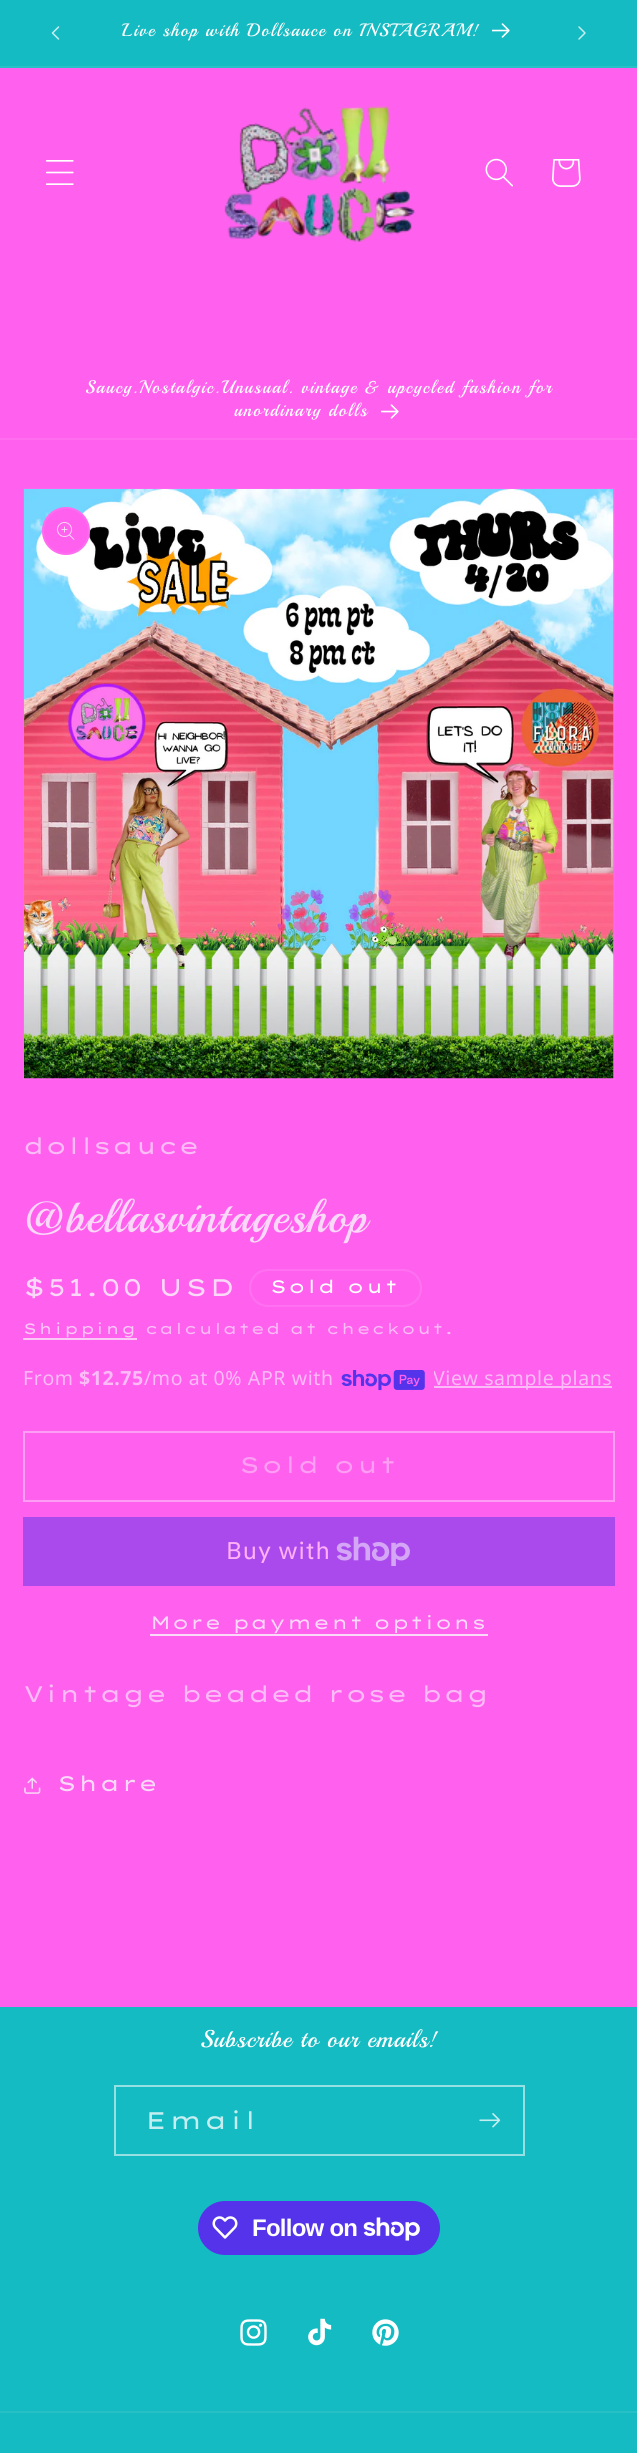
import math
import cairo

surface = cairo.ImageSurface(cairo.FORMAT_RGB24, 637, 2453)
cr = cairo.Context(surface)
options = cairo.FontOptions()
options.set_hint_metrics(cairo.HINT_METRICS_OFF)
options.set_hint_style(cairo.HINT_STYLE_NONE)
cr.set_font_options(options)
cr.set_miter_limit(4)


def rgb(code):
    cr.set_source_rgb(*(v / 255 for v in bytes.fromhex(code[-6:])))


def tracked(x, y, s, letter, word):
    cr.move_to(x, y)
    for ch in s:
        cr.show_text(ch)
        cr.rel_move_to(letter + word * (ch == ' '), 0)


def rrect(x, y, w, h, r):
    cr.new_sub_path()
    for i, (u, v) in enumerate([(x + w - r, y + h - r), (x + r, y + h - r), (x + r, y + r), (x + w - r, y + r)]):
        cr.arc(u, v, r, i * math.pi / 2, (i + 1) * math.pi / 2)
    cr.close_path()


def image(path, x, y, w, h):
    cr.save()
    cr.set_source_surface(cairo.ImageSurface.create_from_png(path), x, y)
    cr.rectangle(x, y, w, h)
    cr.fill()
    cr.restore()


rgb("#ff61ee")
cr.paint()
rgb("#15bbc2")
cr.rectangle(0, 0, 637, 66)
cr.fill()
rgb("#28c0c7")
cr.rectangle(0, 66, 637, 2)
cr.fill()
image("img/1.png", 51, 26, 9, 14)
image("img/2.png", 492, 23, 18, 15)
image("img/3.png", 578, 26, 8, 14)
image("img/4.png", 45, 160, 29, 25)
image("img/5.png", 224, 106, 192, 136)
image("img/6.png", 485, 158, 28, 29)
image("img/7.png", 552, 159, 29, 28)
rgb("#ff6eef")
cr.rectangle(0, 438, 637, 2)
cr.fill()
image("img/8.png", 381, 404, 18, 15)
cr.rectangle(24, 489, 590, 590)
rgb("#ff67ee")
cr.stroke()
image("img/9.png", 24, 489, 590, 590)
rgb("#ff61ee")
cr.arc(66, 531, 24, 0, 2 * math.pi)
cr.fill()
cr.arc(66, 531, 23, 0, 2 * math.pi)
cr.set_source_rgba(0.98, 0.851, 0.973, 0.1)
cr.stroke()
image("img/10.png", 57, 522, 18, 18)
rrect(250, 1270, 171, 36, 18)
rgb("#ff71f0")
cr.stroke()
rgb("#fbc7f7")
cr.rectangle(23, 1338, 114, 2)
cr.fill()
image("img/11.png", 341, 1370, 84, 21)
rgb("#fbbbf6")
cr.rectangle(434, 1386, 178, 2)
cr.fill()
cr.rectangle(24, 1432, 590, 69)
rgb("#fd9df3")
cr.stroke()
rgb("#aa4aed")
cr.rectangle(23, 1517, 592, 69)
cr.fill()
image("img/12.png", 336, 1536, 74, 30)
rgb("#fad9f8")
cr.rectangle(150, 1634, 338, 2)
cr.fill()
image("img/13.png", 24, 1777, 17, 17)
rgb("#15bbc2")
cr.rectangle(0, 2007, 637, 446)
cr.fill()
cr.rectangle(115, 2086, 409, 69)
rgb("#96e0e4")
cr.stroke()
image("img/14.png", 479, 2113, 22, 15)
rgb("#5433eb")
rrect(198, 2201, 242, 54, 27)
cr.fill()
image("img/15.png", 212, 2216, 26, 23)
image("img/16.png", 363, 2217, 57, 24)
image("img/17.png", 240, 2319, 27, 27)
image("img/18.png", 308, 2318, 24, 28)
image("img/19.png", 372, 2319, 27, 27)
rgb("#28c0c7")
cr.rectangle(0, 2411, 637, 2)
cr.fill()
cr.select_font_face("Playball")
cr.set_font_size(18)
rgb("#ffffff")
for x, y, s in [
    (122, 36, "Live shop with Dollsauce on INSTAGRAM!"),
    (85, 393, "Saucy.Nostalgic.Unusual. vintage & upcycled fashion for"),
    (234, 416, "unordinary dolls"),
]:
    tracked(x, y, s, 1.5, 0)
cr.select_font_face("Lexend Zetta")
cr.set_font_size(22.5)
rgb("#fbbbf6")
tracked(23, 1154, "dollsauce", 0.9, 0)
cr.select_font_face("Playball")
cr.set_font_size(45)
rgb("#fad9f8")
tracked(23, 1232, "@bellasvintageshop", 0.9, 0)
cr.select_font_face("Lexend Zetta")
cr.set_font_size(24)
tracked(23, 1296, "$51.00 USD", 2, 0)
cr.set_font_size(18)
rgb("#ffffff")
tracked(270, 1293, "Sold out", 1.5, 0)
cr.set_font_size(15)
rgb("#fbc7f7")
tracked(23, 1334, "Shipping", 1.05, 0)
rgb("#fbbbf6")
tracked(145, 1334, "calculated at checkout.", 1.05, 0)
cr.select_font_face("Noto Sans")
cr.set_font_size(19.5)
tracked(23, 1385, "From", 0.6, 0)
cr.select_font_face("Noto Sans", cairo.FONT_SLANT_NORMAL, cairo.FONT_WEIGHT_BOLD)
tracked(79, 1385, "$12.75", 0.6, 0)
cr.select_font_face("Noto Sans")
tracked(144, 1385, "/mo at 0% APR with", 0.6, 0)
cr.save()
cr.rectangle(434, 1364, 178, 30)
cr.clip()
tracked(433, 1385, "View sample plans", 0.6, 0)
cr.restore()
cr.select_font_face("Lexend Zetta")
cr.set_font_size(22.5)
rgb("#fd9df3")
tracked(239, 1473, "Sold out", 1.5, 0)
cr.select_font_face("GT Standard")
cr.set_font_size(24)
rgb("#ffb0f7")
tracked(226, 1559, "Buy with", 0.9, 0)
cr.select_font_face("Lexend Zetta")
cr.set_font_size(18)
rgb("#fad9f8")
tracked(150, 1629, "More payment options", 0.75, 0)
cr.set_font_size(22.5)
rgb("#fbbbf6")
tracked(23, 1702, "Vintage beaded rose bag", 0.9, 0)
cr.set_font_size(21)
rgb("#fad9f8")
tracked(57, 1791, "Share", 0.9, 0)
cr.select_font_face("Playball")
cr.set_font_size(24)
rgb("#ffffff")
tracked(200, 2047, "Subscribe to our emails!", 0.9, 0)
cr.select_font_face("Lexend Zetta")
rgb("#c5eef0")
tracked(145, 2129, "Email", 1.5, 0)
cr.select_font_face("Liberation Sans", cairo.FONT_SLANT_NORMAL, cairo.FONT_WEIGHT_BOLD)
rgb("#ffffff")
tracked(252, 2236, "Follow on", -0.75, 0)
surface.write_to_png("page.png")
